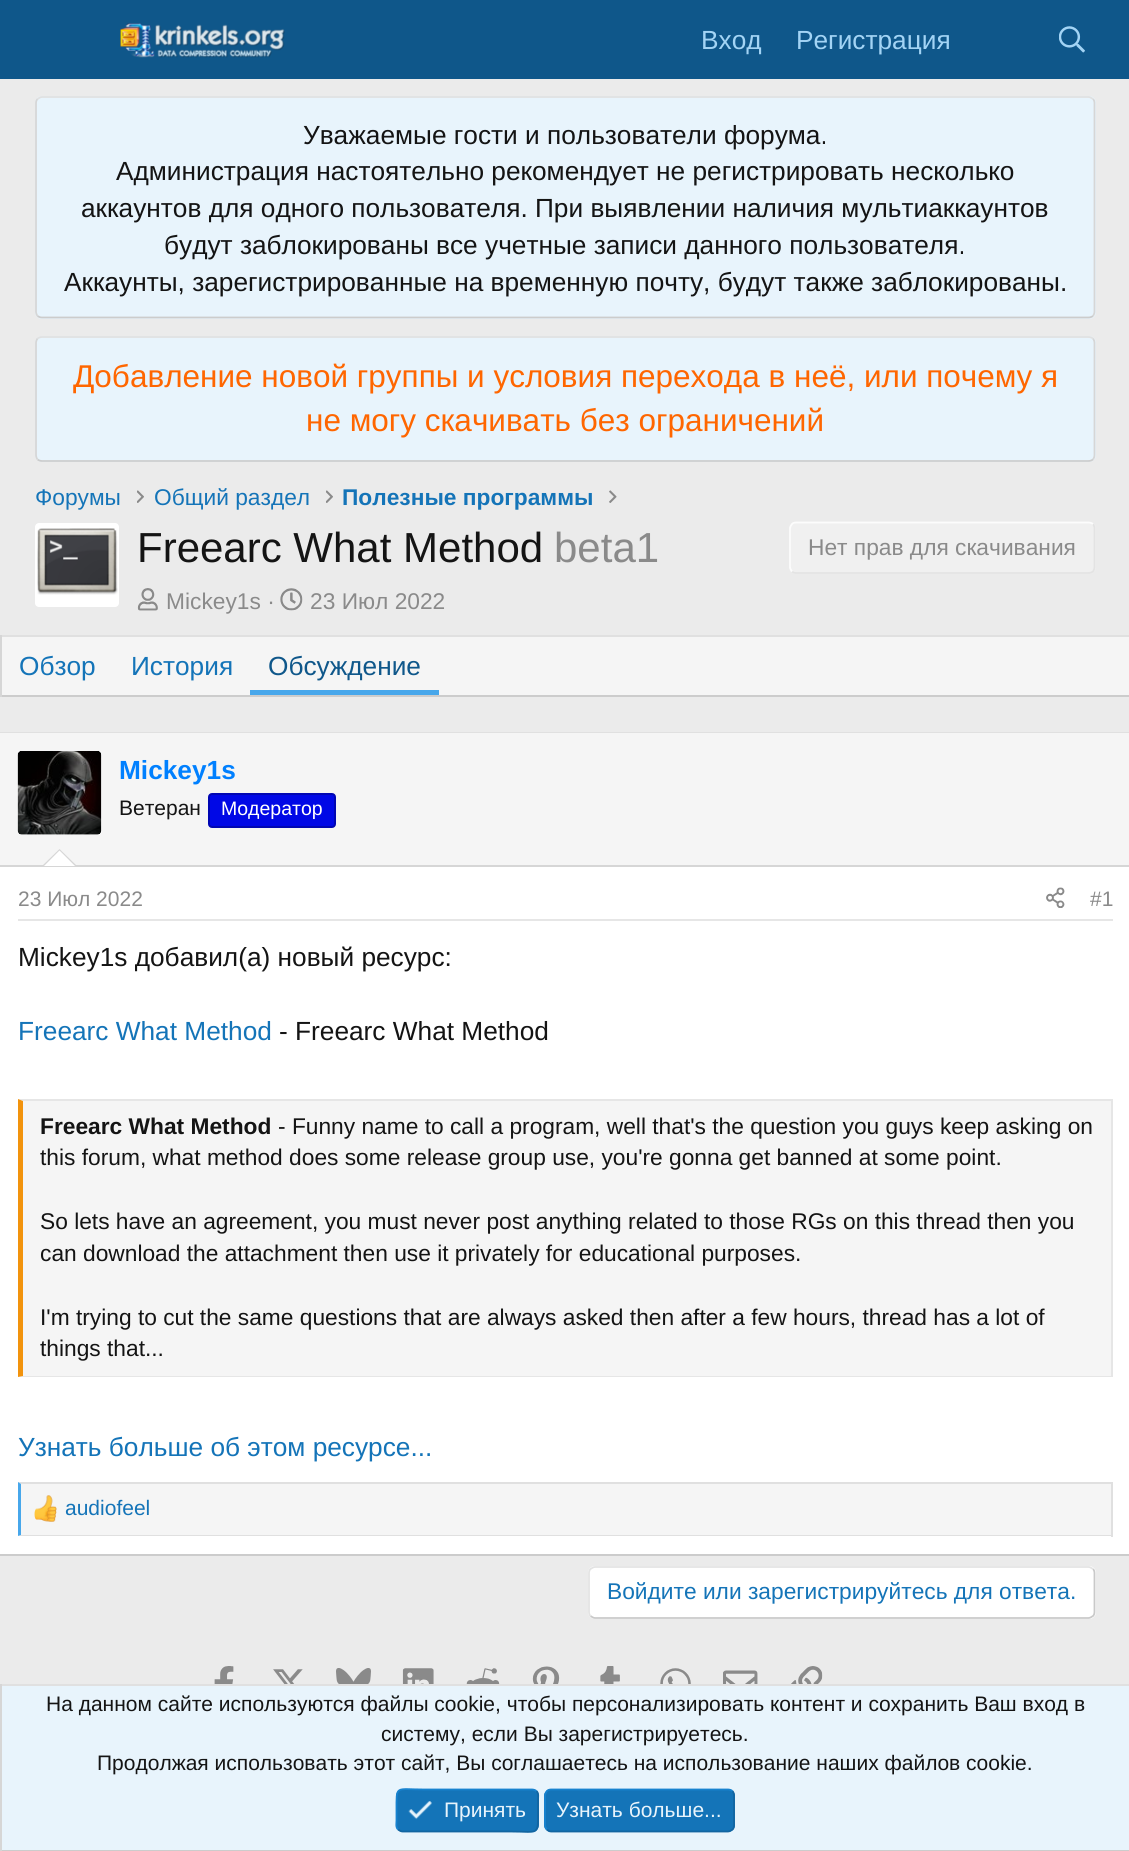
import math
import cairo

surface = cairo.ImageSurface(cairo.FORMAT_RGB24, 1129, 1851)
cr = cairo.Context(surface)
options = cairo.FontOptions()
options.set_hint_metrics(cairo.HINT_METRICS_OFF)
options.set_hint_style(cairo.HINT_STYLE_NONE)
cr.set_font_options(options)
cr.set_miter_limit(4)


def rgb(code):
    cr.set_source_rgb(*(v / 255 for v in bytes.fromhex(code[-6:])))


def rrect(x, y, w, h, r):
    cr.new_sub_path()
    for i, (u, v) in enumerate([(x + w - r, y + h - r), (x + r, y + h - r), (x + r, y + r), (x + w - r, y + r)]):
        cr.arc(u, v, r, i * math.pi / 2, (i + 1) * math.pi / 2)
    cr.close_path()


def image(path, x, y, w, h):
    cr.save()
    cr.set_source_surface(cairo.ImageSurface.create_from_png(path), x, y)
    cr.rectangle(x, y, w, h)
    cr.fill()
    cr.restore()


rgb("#ebebeb")
cr.paint()
rgb("#0f578a")
cr.rectangle(0, 0, 1129, 79)
cr.fill()
image("img/1.png", 120, 23, 165, 35)
image("img/2.png", 1059, 26, 26, 27)
rgb("#e8f4fc")
rrect(35, 96, 1061, 223, 7)
cr.fill()
cr.new_path()
cr.move_to(37.5, 99)
cr.curve_to(39, 98, 40.5, 97, 42, 97)
cr.line_to(1088.5, 97)
cr.curve_to(1090, 97, 1091.5, 98, 1093, 99)
rgb("#e0e0e0")
cr.set_line_width(1.8)
cr.stroke()
cr.new_path()
cr.move_to(1093, 99)
cr.curve_to(1094, 100, 1094.5, 101.5, 1094.5, 103)
cr.line_to(1094.5, 311.5)
cr.curve_to(1094.5, 313, 1094, 314.5, 1093, 316)
rgb("#d6d6d6")
cr.stroke()
cr.new_path()
cr.move_to(1093, 316)
cr.curve_to(1091.5, 317, 1090, 317.5, 1088.5, 317.5)
cr.line_to(42, 317.5)
cr.curve_to(40.5, 317.5, 39, 317, 37.5, 316)
rgb("#cccccc")
cr.stroke()
cr.new_path()
cr.move_to(37.5, 316)
cr.curve_to(36.5, 314.5, 36, 313, 36, 311.5)
cr.line_to(36, 103)
cr.curve_to(36, 101.5, 36.5, 100, 37.5, 99)
rgb("#d6d6d6")
cr.stroke()
rgb("#e8f4fc")
rrect(35, 336, 1061, 126, 7)
cr.fill()
cr.new_path()
cr.move_to(37.5, 338.5)
cr.curve_to(39, 337.5, 40.5, 337, 42, 337)
cr.line_to(1088.5, 337)
cr.curve_to(1090, 337, 1091.5, 337.5, 1093, 338.5)
rgb("#e0e0e0")
cr.stroke()
cr.new_path()
cr.move_to(1093, 338.5)
cr.curve_to(1094, 340, 1094.5, 341.5, 1094.5, 343)
cr.line_to(1094.5, 455)
cr.curve_to(1094.5, 456.5, 1094, 458, 1093, 459.5)
rgb("#d6d6d6")
cr.stroke()
cr.new_path()
cr.move_to(1093, 459.5)
cr.curve_to(1091.5, 460.5, 1090, 461, 1088.5, 461)
cr.line_to(42, 461)
cr.curve_to(40.5, 461, 39, 460.5, 37.5, 459.5)
rgb("#cccccc")
cr.stroke()
cr.new_path()
cr.move_to(37.5, 459.5)
cr.curve_to(36.5, 458, 36, 456.5, 36, 455)
cr.line_to(36, 343)
cr.curve_to(36, 341.5, 36.5, 340, 37.5, 338.5)
rgb("#d6d6d6")
cr.stroke()
image("img/3.png", 137, 490, 7, 13)
image("img/3.png", 326, 490, 7, 13)
image("img/4.png", 609, 490, 8, 13)
rgb("#ffffff")
rrect(35, 523, 84, 84, 4)
cr.fill()
image("img/5.png", 37, 528, 81, 67)
rgb("#f0f0f0")
rrect(789, 522, 307, 52, 7)
cr.fill()
cr.new_path()
cr.move_to(1093, 524)
cr.curve_to(1094, 525.5, 1094.5, 527, 1094.5, 528.5)
cr.line_to(1094.5, 567)
cr.curve_to(1094.5, 568.5, 1094, 570, 1093, 571.5)
cr.curve_to(1091.5, 572.5, 1090, 573, 1088.5, 573)
cr.line_to(796, 573)
cr.curve_to(794.5, 573, 793, 572.5, 792, 571.5)
rgb("#e3e3e3")
cr.stroke()
cr.new_path()
cr.move_to(792, 571.5)
cr.curve_to(791, 570, 790, 568.5, 790, 567)
cr.line_to(790, 528.5)
cr.curve_to(790, 527, 791, 525.5, 792, 524)
cr.curve_to(793, 523, 794.5, 522.5, 796, 522.5)
cr.line_to(1088.5, 522.5)
cr.curve_to(1090, 522.5, 1091.5, 523, 1093, 524)
rgb("#fcfcfc")
cr.stroke()
image("img/6.png", 137, 588, 21, 23)
image("img/7.png", 280, 588, 23, 23)
for x, y, w, h, color in [
    (2, 637, 1127, 58, "#f5f5f5"),
    (0, 635, 1129, 2, "#e0e0e0"),
    (0, 695, 1129, 2, "#cccccc"),
    (0, 635, 2, 62, "#d6d6d6"),
    (250, 690, 189, 5, "#47a7eb"),
    (0, 867, 1129, 687, "#ffffff"),
    (0, 732, 1129, 1, "#e0e0e0"),
    (0, 1554, 1129, 2, "#cccccc"),
    (0, 733, 1129, 132, "#f5f5f5"),
    (0, 865, 1129, 2, "#d6d6d6"),
]:
    rgb(color)
    cr.rectangle(x, y, w, h)
    cr.fill()
rgb("#ffffff")
rrect(18, 751, 84, 84, 4)
cr.fill()
image("img/8.png", 17, 751, 85, 84)
rgb("#0008e6")
rrect(209, 794, 126, 33, 3)
cr.fill_preserve()
rgb("#0006b3")
cr.set_line_width(2)
cr.stroke()
rgb("#d6d6d6")
cr.new_path()
cr.move_to(77, 866)
cr.line_to(42, 866)
cr.line_to(59.5, 849)
cr.close_path()
cr.fill()
rgb("#ffffff")
cr.new_path()
cr.move_to(75, 866)
cr.line_to(44, 866)
cr.line_to(59.5, 850.5)
cr.close_path()
cr.fill()
rgb("#e6e6e6")
cr.rectangle(18, 919, 1095, 2)
cr.fill()
image("img/9.png", 1046, 887, 19, 21)
rgb("#f5f5f5")
cr.rectangle(23, 1101, 1088, 275)
cr.fill()
rgb("#e6e6e6")
cr.new_path()
cr.move_to(18, 1099)
cr.line_to(1113, 1099)
cr.line_to(1111, 1101)
cr.line_to(23, 1101)
cr.close_path()
cr.fill()
cr.rectangle(1111, 1099, 2, 278)
cr.fill()
cr.new_path()
cr.move_to(1113, 1377)
cr.line_to(18, 1377)
cr.line_to(23, 1376)
cr.line_to(1111, 1376)
cr.close_path()
cr.fill()
rgb("#f2930d")
cr.new_path()
cr.move_to(18, 1377)
cr.line_to(18, 1099)
cr.line_to(23, 1101)
cr.line_to(23, 1376)
cr.close_path()
cr.fill()
rgb("#f5f5f5")
cr.rectangle(21, 1484, 1090, 51)
cr.fill()
rgb("#e0e0e0")
cr.new_path()
cr.move_to(18, 1482)
cr.line_to(1113, 1482)
cr.line_to(1111, 1484)
cr.line_to(21, 1484)
cr.close_path()
cr.fill()
cr.rectangle(1111, 1482, 2, 55)
cr.fill()
cr.new_path()
cr.move_to(1113, 1536)
cr.line_to(18, 1536)
cr.line_to(21, 1535)
cr.line_to(1111, 1535)
cr.close_path()
cr.fill()
rgb("#47a7eb")
cr.new_path()
cr.move_to(18, 1536)
cr.line_to(18, 1482)
cr.line_to(21, 1484)
cr.line_to(21, 1535)
cr.close_path()
cr.fill()
image("img/10.png", 34, 1495, 23, 27)
rgb("#ffffff")
rrect(588, 1566, 508, 53, 7)
cr.fill()
cr.new_path()
cr.move_to(1093, 1569)
cr.curve_to(1094, 1570, 1094.5, 1571.5, 1094.5, 1573)
cr.line_to(1094.5, 1612)
cr.curve_to(1094.5, 1613.5, 1094, 1615, 1093, 1616)
cr.curve_to(1091.5, 1617, 1090, 1618, 1088.5, 1618)
cr.line_to(595, 1618)
cr.curve_to(593.5, 1618, 592, 1617, 590.5, 1616)
rgb("#c9c9c9")
cr.set_line_width(1.8)
cr.stroke()
cr.new_path()
cr.move_to(590.5, 1616)
cr.curve_to(589.5, 1615, 589, 1613.5, 589, 1612)
cr.line_to(589, 1573)
cr.curve_to(589, 1571.5, 589.5, 1570, 590.5, 1569)
cr.curve_to(592, 1568, 593.5, 1567, 595, 1567)
cr.line_to(1088.5, 1567)
cr.curve_to(1090, 1567, 1091.5, 1568, 1093, 1569)
rgb("#e3e3e3")
cr.stroke()
image("img/11.png", 214, 1666, 20, 18)
image("img/12.png", 273, 1669, 30, 15)
image("img/13.png", 336, 1668, 35, 16)
image("img/14.png", 402, 1668, 32, 16)
image("img/15.png", 466, 1668, 34, 16)
image("img/16.png", 532, 1666, 28, 18)
image("img/17.png", 600, 1666, 20, 18)
image("img/18.png", 660, 1668, 31, 16)
image("img/19.png", 723, 1670, 35, 14)
image("img/20.png", 791, 1666, 32, 18)
for x, y, w, h, color in [
    (2, 1686, 1127, 164, "#e8f4fc"),
    (0, 1684, 1129, 2, "#e0e0e0"),
    (0, 1850, 1129, 1, "#cccccc"),
    (0, 1684, 2, 167, "#d6d6d6"),
]:
    rgb(color)
    cr.rectangle(x, y, w, h)
    cr.fill()
rgb("#1474b8")
rrect(396, 1789, 143, 43, 7)
cr.fill()
cr.new_path()
cr.move_to(536.5, 1791)
cr.curve_to(539, 1793.5, 538, 1797.5, 538, 1800.5)
cr.line_to(538, 1810.5)
cr.curve_to(538, 1836.5, 539.5, 1831.5, 510.5, 1831.5)
cr.line_to(402.5, 1831.5)
cr.curve_to(401, 1831.5, 399.5, 1830.5, 398, 1829.5)
rgb("#1265a1")
cr.stroke()
cr.new_path()
cr.move_to(398, 1829.5)
cr.curve_to(395.5, 1827, 396.5, 1823.5, 396.5, 1820.5)
cr.line_to(396.5, 1810.5)
cr.curve_to(396.5, 1784.5, 395, 1789.5, 424, 1789.5)
cr.line_to(532, 1789.5)
cr.curve_to(533.5, 1789.5, 535, 1790, 536.5, 1791)
rgb("#1782cf")
cr.stroke()
image("img/21.png", 408, 1801, 24, 19)
rgb("#1474b8")
rrect(544, 1789, 191, 43, 7)
cr.fill()
cr.new_path()
cr.move_to(732.5, 1791)
cr.curve_to(733.5, 1792.5, 734, 1794, 734, 1795.5)
cr.line_to(734, 1825)
cr.curve_to(734, 1827, 733.5, 1828.5, 732.5, 1829.5)
cr.curve_to(731, 1830.5, 729.5, 1831.5, 728, 1831.5)
cr.line_to(551, 1831.5)
cr.curve_to(549.5, 1831.5, 548, 1830.5, 547, 1829.5)
rgb("#1265a1")
cr.stroke()
cr.new_path()
cr.move_to(547, 1829.5)
cr.curve_to(546, 1828.5, 545, 1827, 545, 1825)
cr.line_to(545, 1795.5)
cr.curve_to(545, 1794, 546, 1792.5, 547, 1791)
cr.curve_to(548, 1790, 549.5, 1789.5, 551, 1789.5)
cr.line_to(728, 1789.5)
cr.curve_to(729.5, 1789.5, 731, 1790, 732.5, 1791)
rgb("#1782cf")
cr.stroke()
cr.select_font_face("Liberation Sans")
cr.set_font_size(26.25)
rgb("#a3d4f5")
cr.move_to(701, 49)
cr.show_text("Вход")
cr.move_to(796, 49)
cr.show_text("Регистрация")
rgb("#141414")
for x, y, s in [
    (303, 144, "Уважаемые гости и пользователи форума."),
    (116, 180, "Администрация настоятельно рекомендует не регистрировать несколько"),
    (81, 217, "аккаунтов для одного пользователя. При выявлении наличия мультиаккаунтов"),
    (164, 254, "будут заблокированы все учетные записи данного пользователя."),
    (64, 291, "Аккаунты, зарегистрированные на временную почту, будут также заблокированы."),
]:
    cr.move_to(x, y)
    cr.show_text(s)
cr.set_font_size(31.5)
rgb("#ff6600")
cr.move_to(73, 387)
cr.show_text("Добавление новой группы и условия перехода в неё, или почему я")
cr.move_to(306, 431)
cr.show_text("не могу скачивать без ограничений")
cr.set_font_size(22.75)
rgb("#1474b8")
cr.move_to(35, 505)
cr.show_text("Форумы")
cr.move_to(154, 505)
cr.show_text("Общий раздел")
cr.select_font_face("Liberation Sans", cairo.FONT_SLANT_NORMAL, cairo.FONT_WEIGHT_BOLD)
cr.move_to(342, 505)
cr.show_text("Полезные программы")
cr.select_font_face("Liberation Sans")
cr.set_font_size(42)
rgb("#141414")
cr.move_to(137, 562)
cr.show_text("Freearc What Method")
rgb("#8a8a8a")
cr.move_to(554, 562)
cr.show_text("beta1")
cr.set_font_size(22.75)
for x, y, s in [
    (808, 555, "Нет прав для скачивания"),
    (166, 609, "Mickey1s ·"),
    (310, 609, "23 Июл 2022"),
]:
    cr.move_to(x, y)
    cr.show_text(s)
cr.set_font_size(26.25)
rgb("#1474b8")
cr.move_to(19, 675)
cr.show_text("Обзор")
cr.move_to(131, 675)
cr.show_text("История")
rgb("#0f578a")
cr.move_to(268, 675)
cr.show_text("Обсуждение")
cr.select_font_face("Liberation Sans", cairo.FONT_SLANT_NORMAL, cairo.FONT_WEIGHT_BOLD)
rgb("#0080ff")
cr.move_to(119, 779)
cr.show_text("Mickey1s")
cr.select_font_face("Liberation Sans")
cr.set_font_size(21)
rgb("#141414")
cr.move_to(119, 815)
cr.show_text("Ветеран")
cr.set_font_size(19.5)
rgb("#ffffff")
cr.move_to(221, 815)
cr.show_text("Модератор")
cr.set_font_size(21)
rgb("#8a8a8a")
cr.move_to(18, 906)
cr.show_text("23 Июл 2022")
cr.move_to(1090, 906)
cr.show_text("#1")
cr.set_font_size(26.25)
rgb("#141414")
cr.move_to(18, 966)
cr.show_text("Mickey1s добавил(а) новый ресурс:")
rgb("#1474b8")
cr.move_to(18, 1040)
cr.show_text("Freearc What Method")
rgb("#141414")
cr.move_to(279, 1040)
cr.show_text("- Freearc What Method")
cr.select_font_face("Liberation Sans", cairo.FONT_SLANT_NORMAL, cairo.FONT_WEIGHT_BOLD)
cr.set_font_size(22.75)
cr.move_to(40, 1134)
cr.show_text("Freearc What Method")
cr.select_font_face("Liberation Sans")
for x, y, s in [
    (278, 1134, "- Funny name to call a program, well that's the question you guys keep asking on"),
    (40, 1165, "this forum, what method does some release group use, you're gonna get banned at some point."),
    (40, 1229, "So lets have an agreement, you must never post anything related to those RGs on this thread then you"),
    (40, 1261, "can download the attachment then use it privately for educational purposes."),
    (40, 1325, "I'm trying to cut the same questions that are always asked then after a few hours, thread has a lot of"),
    (40, 1356, "things that..."),
]:
    cr.move_to(x, y)
    cr.show_text(s)
cr.set_font_size(26.25)
rgb("#1474b8")
cr.move_to(18, 1456)
cr.show_text("Узнать больше об этом ресурсе...")
cr.set_font_size(21)
cr.move_to(65, 1515)
cr.show_text("audiofeel")
cr.set_font_size(22.75)
cr.move_to(607, 1599)
cr.show_text("Войдите или зарегистрируйтесь для ответа.")
cr.set_font_size(21)
rgb("#141414")
for x, y, s in [
    (46, 1711, "На данном сайте используются файлы cookie, чтобы персонализировать контент и сохранить Ваш вход в"),
    (381, 1741, "систему, если Вы зарегистрируетесь."),
    (97, 1770, "Продолжая использовать этот сайт, Вы соглашаетесь на использование наших файлов cookie."),
]:
    cr.move_to(x, y)
    cr.show_text(s)
rgb("#e8f4fc")
cr.move_to(444, 1817)
cr.show_text("Принять")
cr.move_to(556, 1817)
cr.show_text("Узнать больше...")
surface.write_to_png("page.png")
